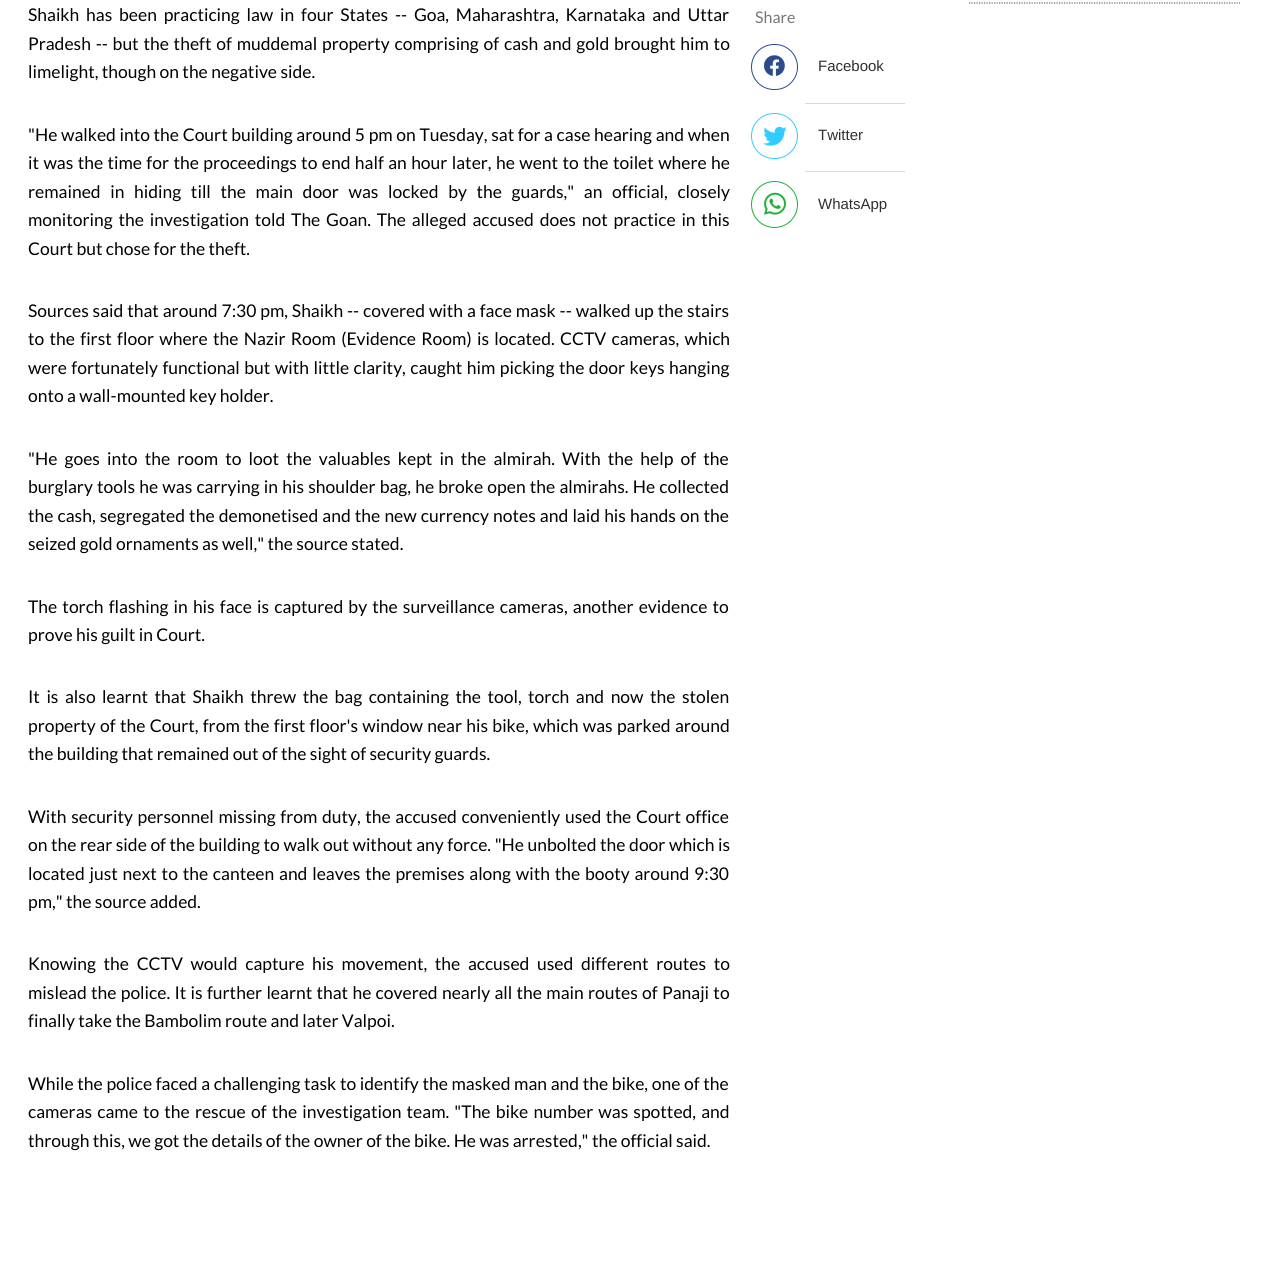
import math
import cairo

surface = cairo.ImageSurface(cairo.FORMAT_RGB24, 1267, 1283)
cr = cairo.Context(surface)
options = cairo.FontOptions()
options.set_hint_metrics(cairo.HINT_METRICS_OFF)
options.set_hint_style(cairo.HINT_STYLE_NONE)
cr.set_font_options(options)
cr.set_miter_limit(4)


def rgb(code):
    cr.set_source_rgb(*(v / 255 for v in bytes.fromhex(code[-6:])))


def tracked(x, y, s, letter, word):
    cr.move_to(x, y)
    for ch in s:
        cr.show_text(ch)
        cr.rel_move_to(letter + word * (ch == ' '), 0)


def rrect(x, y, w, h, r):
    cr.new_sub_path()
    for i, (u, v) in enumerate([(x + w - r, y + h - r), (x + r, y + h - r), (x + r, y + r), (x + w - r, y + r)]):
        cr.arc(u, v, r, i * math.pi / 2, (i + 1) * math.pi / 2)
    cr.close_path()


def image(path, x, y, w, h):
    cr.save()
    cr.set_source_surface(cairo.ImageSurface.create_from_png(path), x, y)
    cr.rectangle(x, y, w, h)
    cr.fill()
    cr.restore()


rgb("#ffffff")
cr.paint()
cr.new_path()
cr.move_to(969, 3)
cr.line_to(1240, 3)
rgb("#676767")
cr.set_line_width(1.2)
cr.set_dash([1.25, 1.25])
cr.stroke()
rgb("#d9d9d9")
cr.rectangle(805, 103, 100, 1)
cr.fill()
rrect(751.5, 44.5, 46, 45, 22.5)
rgb("#2a4b90")
cr.set_line_width(1)
cr.set_dash([])
cr.stroke()
image("img/1.png", 763, 55, 22, 21)
rgb("#d9d9d9")
cr.rectangle(805, 171, 100, 1)
cr.fill()
rrect(751.5, 113.5, 46, 45, 22.5)
rgb("#33ccff")
cr.stroke()
image("img/2.png", 763, 126, 24, 20)
cr.arc(774.5, 204.5, 23, 0, 2 * math.pi)
rgb("#1db235")
cr.stroke()
image("img/3.png", 764, 192, 22, 23)
cr.select_font_face("Lato")
cr.set_font_size(17.5)
rgb("#000000")
tracked(28, 21, "Shaikh has been practicing law in four States -- Goa, Maharashtra, Karnataka and Uttar", 0, 3.4)
tracked(28, 50, "Pradesh -- but the theft of muddemal property comprising of cash and gold brought him to", 0, 1.4)
cr.move_to(28, 78)
cr.show_text("limelight, though on the negative side.")
tracked(28, 141, "\"He walked into the Court building around 5 pm on Tuesday, sat for a case hearing and when", 0, 0.25)
tracked(28, 169, "it was the time for the proceedings to end half an hour later, he went to the toilet where he", 0, 1)
tracked(28, 198, "remained in hiding till the main door was locked by the guards,\" an official, closely", 0, 6.25)
tracked(28, 226, "monitoring the investigation told The Goan. The alleged accused does not practice in this", 0, 2.4)
cr.move_to(28, 255)
cr.show_text("Court but chose for the theft.")
tracked(28, 317, "Sources said that around 7:30 pm, Shaikh -- covered with a face mask -- walked up the stairs", 0, 0.5)
tracked(28, 345, "to the first floor where the Nazir Room (Evidence Room) is located. CCTV cameras, which", 0, 1.9)
tracked(28, 374, "were fortunately functional but with little clarity, caught him picking the door keys hanging", 0, 1.1)
cr.move_to(28, 402)
cr.show_text("onto a wall-mounted key holder.")
tracked(28, 465, "\"He goes into the room to loot the valuables kept in the almirah. With the help of the", 0, 3.75)
tracked(28, 493, "burglary tools he was carrying in his shoulder bag, he broke open the almirahs. He collected", 0, 0.8)
tracked(28, 522, "the cash, segregated the demonetised and the new currency notes and laid his hands on the", 0, 0.75)
cr.move_to(28, 550)
cr.show_text("seized gold ornaments as well,\" the source stated.")
tracked(28, 613, "The torch flashing in his face is captured by the surveillance cameras, another evidence to", 0, 1.75)
cr.move_to(28, 641)
cr.show_text("prove his guilt in Court.")
tracked(28, 703, "It is also learnt that Shaikh threw the bag containing the tool, torch and now the stolen", 0, 3.1)
tracked(28, 732, "property of the Court, from the first floor's window near his bike, which was parked around", 0, 0.9)
cr.move_to(28, 760)
cr.show_text("the building that remained out of the sight of security guards.")
tracked(28, 823, "With security personnel missing from duty, the accused conveniently used the Court office", 0, 1.25)
tracked(28, 851, "on the rear side of the building to walk out without any force. \"He unbolted the door which is", 0, 0.2)
tracked(28, 880, "located just next to the canteen and leaves the premises along with the booty around 9:30", 0, 1.4)
cr.move_to(28, 908)
cr.show_text("pm,\" the source added.")
tracked(28, 970, "Knowing the CCTV would capture his movement, the accused used different routes to", 0, 4.25)
tracked(28, 999, "mislead the police. It is further learnt that he covered nearly all the main routes of Panaji to", 0, 0.9)
cr.move_to(28, 1027)
cr.show_text("finally take the Bambolim route and later Valpoi.")
tracked(28, 1090, "While the police faced a challenging task to identify the masked man and the bike, one of the", 0, 0.25)
tracked(28, 1118, "cameras came to the rescue of the investigation team. \"The bike number was spotted, and", 0, 1.75)
cr.move_to(28, 1147)
cr.show_text("through this, we got the details of the owner of the bike. He was arrested,\" the official said.")
cr.set_font_size(16)
rgb("#767676")
cr.move_to(755, 23)
cr.show_text("Share")
cr.select_font_face("Liberation Sans")
cr.set_font_size(15)
rgb("#2f2f2f")
for x, y, s in [
    (818, 71, "Facebook"),
    (818, 140, "Twitter"),
    (818, 209, "WhatsApp"),
]:
    cr.move_to(x, y)
    cr.show_text(s)
surface.write_to_png("page.png")
